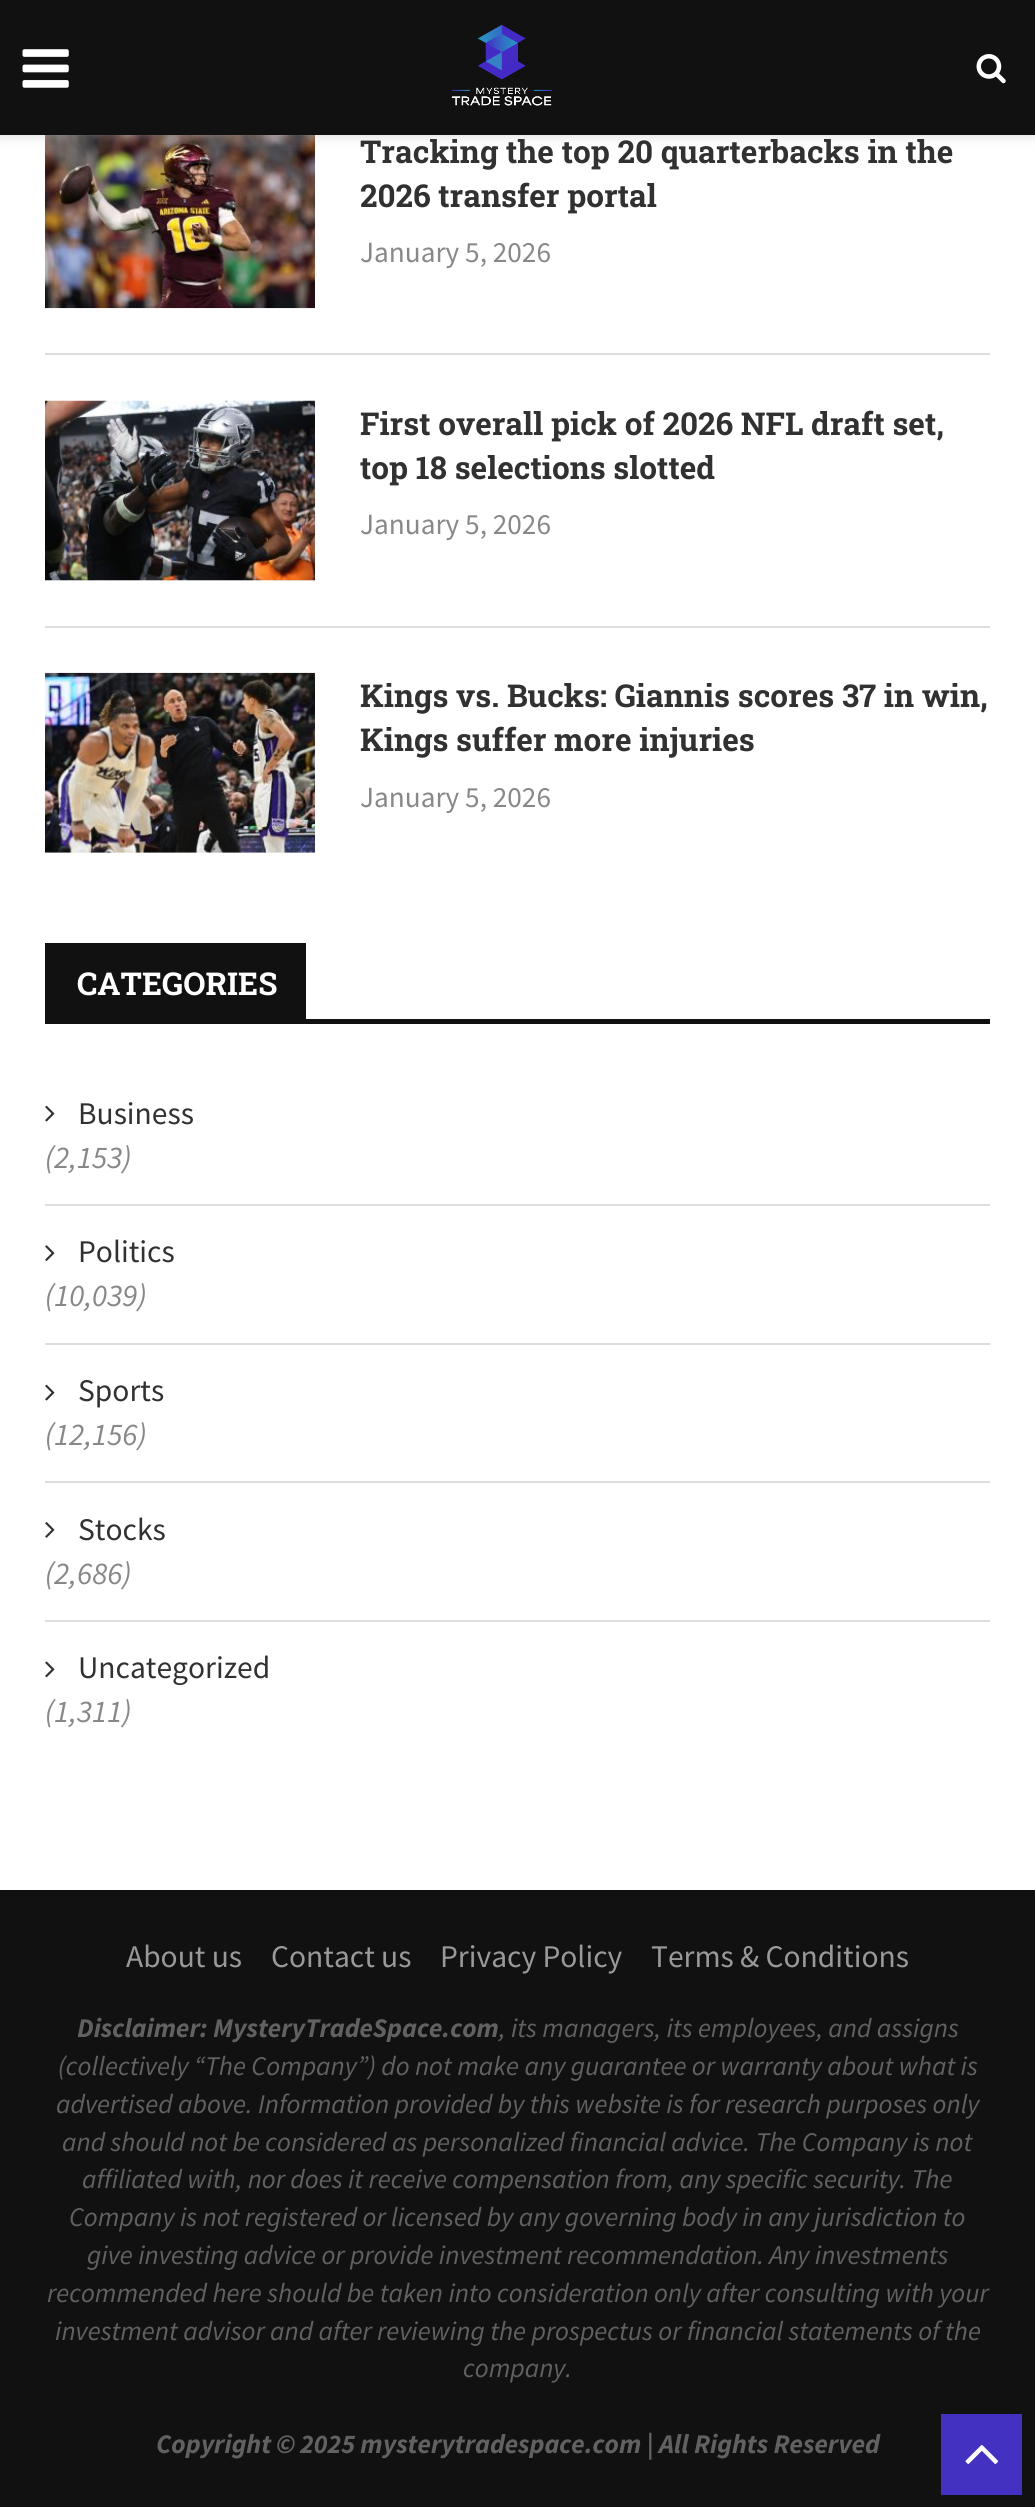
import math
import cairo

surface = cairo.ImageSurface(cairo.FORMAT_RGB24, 1035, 2507)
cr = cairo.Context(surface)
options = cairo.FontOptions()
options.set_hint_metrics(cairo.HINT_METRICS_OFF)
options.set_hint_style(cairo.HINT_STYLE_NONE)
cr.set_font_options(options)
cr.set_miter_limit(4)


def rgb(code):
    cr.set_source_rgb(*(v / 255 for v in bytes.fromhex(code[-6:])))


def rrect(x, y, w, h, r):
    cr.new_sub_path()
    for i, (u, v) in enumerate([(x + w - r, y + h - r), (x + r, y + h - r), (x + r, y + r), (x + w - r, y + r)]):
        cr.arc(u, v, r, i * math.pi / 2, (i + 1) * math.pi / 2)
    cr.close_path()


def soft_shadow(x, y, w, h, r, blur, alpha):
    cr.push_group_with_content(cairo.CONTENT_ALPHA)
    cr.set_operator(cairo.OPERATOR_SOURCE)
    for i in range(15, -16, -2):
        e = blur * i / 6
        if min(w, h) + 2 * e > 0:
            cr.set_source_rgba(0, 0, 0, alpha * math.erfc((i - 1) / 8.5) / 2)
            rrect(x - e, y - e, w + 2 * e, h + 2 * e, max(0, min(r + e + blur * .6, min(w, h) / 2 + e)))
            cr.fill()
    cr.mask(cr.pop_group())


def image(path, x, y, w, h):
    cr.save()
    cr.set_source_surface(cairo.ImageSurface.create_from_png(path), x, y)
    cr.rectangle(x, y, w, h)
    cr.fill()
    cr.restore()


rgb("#ffffff")
cr.paint()
image("img/4.png", 45, 135, 270, 174)
rgb("#bebebe")
soft_shadow(0, 2, 1035, 135, 0, 5.5, 0.46)
rgb("#111111")
cr.rectangle(0, 0, 1035, 135)
cr.fill()
image("img/1.png", 22, 49, 47, 39)
image("img/2.png", 451, 25, 101, 81)
image("img/3.png", 976, 54, 30, 30)
for x, y, w, h, color in [
    (45, 353, 945, 2, "#dedede"),
    (45, 626, 945, 2, "#dedede"),
    (45, 580, 270, 1, "#f5f5f5"),
]:
    rgb(color)
    cr.rectangle(x, y, w, h)
    cr.fill()
image("img/5.png", 45, 400, 270, 181)
cr.rectangle(45, 852, 270, 1)
cr.fill()
image("img/6.png", 45, 672, 270, 181)
for x, y, w, h, color in [
    (45, 1019, 945, 5, "#111111"),
    (50, 945, 254, 74, "#111111"),
    (45, 943, 261, 2, "#111111"),
    (304, 943, 2, 81, "#111111"),
    (45, 943, 5, 81, "#111111"),
    (45, 1204, 945, 2, "#dedede"),
]:
    rgb(color)
    cr.rectangle(x, y, w, h)
    cr.fill()
image("img/7.png", 45, 1105, 10, 17)
cr.rectangle(45, 1343, 945, 2)
cr.fill()
image("img/8.png", 45, 1245, 10, 16)
cr.rectangle(45, 1481, 945, 2)
cr.fill()
image("img/7.png", 45, 1384, 10, 17)
cr.rectangle(45, 1620, 945, 2)
cr.fill()
image("img/9.png", 45, 1522, 10, 16)
image("img/10.png", 45, 1661, 10, 17)
rgb("#111111")
cr.rectangle(0, 1890, 1035, 617)
cr.fill()
rgb("#4331c1")
cr.rectangle(941, 2414, 81, 81)
cr.fill()
image("img/11.png", 965, 2445, 34, 19)
cr.select_font_face("Roboto Slab", cairo.FONT_SLANT_NORMAL, cairo.FONT_WEIGHT_BOLD)
cr.set_font_size(31.5)
rgb("#313131")
cr.move_to(360, 163)
cr.show_text("Tracking the top 20 quarterbacks in the")
cr.move_to(360, 207)
cr.show_text("2026 transfer portal")
cr.select_font_face("Source Sans Pro")
cr.set_font_size(29.25)
rgb("#888888")
cr.move_to(360, 262)
cr.show_text("January 5, 2026")
cr.select_font_face("Roboto Slab", cairo.FONT_SLANT_NORMAL, cairo.FONT_WEIGHT_BOLD)
cr.set_font_size(31.5)
rgb("#313131")
cr.move_to(360, 435)
cr.show_text("First overall pick of 2026 NFL draft set,")
cr.move_to(360, 479)
cr.show_text("top 18 selections slotted")
cr.select_font_face("Source Sans Pro")
cr.set_font_size(29.25)
rgb("#888888")
cr.move_to(360, 534)
cr.show_text("January 5, 2026")
cr.select_font_face("Roboto Slab", cairo.FONT_SLANT_NORMAL, cairo.FONT_WEIGHT_BOLD)
cr.set_font_size(31.5)
rgb("#313131")
cr.move_to(360, 707)
cr.show_text("Kings vs. Bucks: Giannis scores 37 in win,")
cr.move_to(360, 751)
cr.show_text("Kings suffer more injuries")
cr.select_font_face("Source Sans Pro")
cr.set_font_size(29.25)
rgb("#888888")
cr.move_to(360, 807)
cr.show_text("January 5, 2026")
cr.select_font_face("Roboto Slab", cairo.FONT_SLANT_NORMAL, cairo.FONT_WEIGHT_BOLD)
cr.set_font_size(31.5)
rgb("#ffffff")
cr.move_to(77, 995)
cr.show_text("CATEGORIES")
cr.select_font_face("Source Sans Pro")
rgb("#313131")
cr.move_to(78, 1124)
cr.show_text("Business")
cr.select_font_face("Source Sans Pro", cairo.FONT_SLANT_ITALIC)
rgb("#888888")
cr.move_to(45, 1168)
cr.show_text("(2,153)")
cr.select_font_face("Source Sans Pro")
rgb("#313131")
cr.move_to(78, 1262)
cr.show_text("Politics")
cr.select_font_face("Source Sans Pro", cairo.FONT_SLANT_ITALIC)
rgb("#888888")
cr.move_to(45, 1306)
cr.show_text("(10,039)")
cr.select_font_face("Source Sans Pro")
rgb("#313131")
cr.move_to(78, 1401)
cr.show_text("Sports")
cr.select_font_face("Source Sans Pro", cairo.FONT_SLANT_ITALIC)
rgb("#888888")
cr.move_to(45, 1445)
cr.show_text("(12,156)")
cr.select_font_face("Source Sans Pro")
rgb("#313131")
cr.move_to(78, 1540)
cr.show_text("Stocks")
cr.select_font_face("Source Sans Pro", cairo.FONT_SLANT_ITALIC)
rgb("#888888")
cr.move_to(45, 1584)
cr.show_text("(2,686)")
cr.select_font_face("Source Sans Pro")
rgb("#313131")
cr.move_to(78, 1678)
cr.show_text("Uncategorized")
cr.select_font_face("Source Sans Pro", cairo.FONT_SLANT_ITALIC)
rgb("#888888")
cr.move_to(45, 1722)
cr.show_text("(1,311)")
cr.select_font_face("Source Sans Pro")
rgb("#999999")
for x, y, s in [
    (126, 1967, "About us"),
    (271, 1967, "Contact us"),
    (440, 1967, "Privacy Policy"),
    (651, 1967, "Terms & Conditions"),
]:
    cr.move_to(x, y)
    cr.show_text(s)
cr.select_font_face("Source Sans Pro", cairo.FONT_SLANT_ITALIC, cairo.FONT_WEIGHT_BOLD)
cr.set_font_size(27)
rgb("#616161")
cr.move_to(77, 2037)
cr.show_text("Disclaimer: MysteryTradeSpace.com")
cr.select_font_face("Source Sans Pro", cairo.FONT_SLANT_ITALIC)
for x, y, s in [
    (499, 2037, ", its managers, its employees, and assigns"),
    (58, 2075, "(collectively “The Company”) do not make any guarantee or warranty about what is"),
    (56, 2113, "advertised above. Information provided by this website is for research purposes only"),
    (62, 2151, "and should not be considered as personalized financial advice. The Company is not"),
    (82, 2188, "affiliated with, nor does it receive compensation from, any specific security. The"),
    (69, 2226, "Company is not registered or licensed by any governing body in any jurisdiction to"),
    (87, 2264, "give investing advice or provide investment recommendation. Any investments"),
    (47, 2302, "recommended here should be taken into consideration only after consulting with your"),
    (55, 2340, "investment advisor and after reviewing the prospectus or financial statements of the"),
    (463, 2377, "company."),
]:
    cr.move_to(x, y)
    cr.show_text(s)
cr.select_font_face("Source Sans Pro", cairo.FONT_SLANT_ITALIC, cairo.FONT_WEIGHT_BOLD)
cr.move_to(156, 2453)
cr.show_text("Copyright © 2025 mysterytradespace.com | All Rights Reserved")
surface.write_to_png("page.png")
